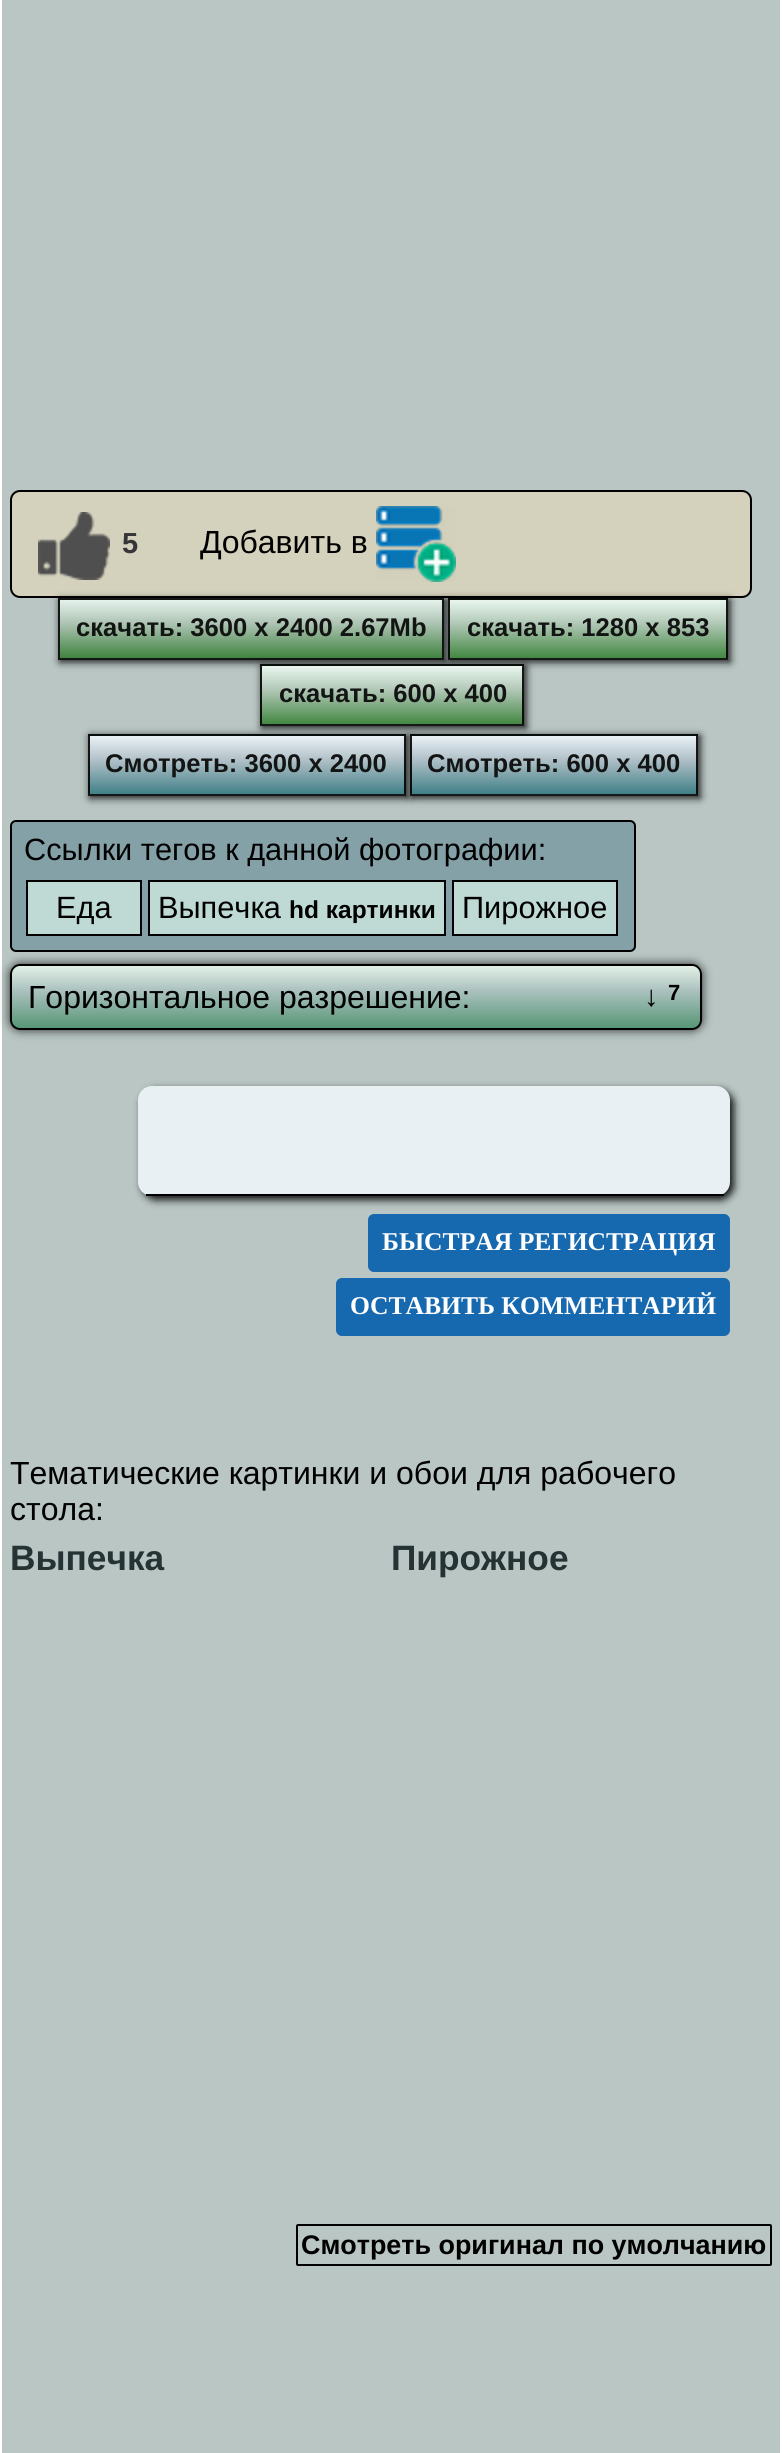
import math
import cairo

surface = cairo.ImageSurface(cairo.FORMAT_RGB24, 782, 2453)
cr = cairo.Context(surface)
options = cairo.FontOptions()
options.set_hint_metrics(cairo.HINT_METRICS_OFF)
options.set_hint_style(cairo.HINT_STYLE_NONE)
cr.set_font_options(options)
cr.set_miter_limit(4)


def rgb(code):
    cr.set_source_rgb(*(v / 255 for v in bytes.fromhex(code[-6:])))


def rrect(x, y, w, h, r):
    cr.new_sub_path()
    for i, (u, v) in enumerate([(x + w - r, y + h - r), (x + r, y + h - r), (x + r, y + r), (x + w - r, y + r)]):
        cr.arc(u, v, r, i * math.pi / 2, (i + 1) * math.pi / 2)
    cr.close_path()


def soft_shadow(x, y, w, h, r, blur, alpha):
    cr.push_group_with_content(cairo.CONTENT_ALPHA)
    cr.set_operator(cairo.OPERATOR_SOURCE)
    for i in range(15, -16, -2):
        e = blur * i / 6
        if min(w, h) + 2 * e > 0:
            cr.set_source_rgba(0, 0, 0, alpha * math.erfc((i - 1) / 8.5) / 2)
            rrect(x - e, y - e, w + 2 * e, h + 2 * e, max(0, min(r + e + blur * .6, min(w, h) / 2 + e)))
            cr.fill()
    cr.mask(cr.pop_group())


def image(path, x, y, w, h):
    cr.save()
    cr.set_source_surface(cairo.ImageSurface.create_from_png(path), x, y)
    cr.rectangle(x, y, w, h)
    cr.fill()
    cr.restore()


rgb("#ffffff")
cr.paint()
rgb("#b9c6c3")
cr.rectangle(2, 0, 778, 2453)
cr.fill()
rgb("#d4d1bc")
rrect(11, 491, 740, 106, 9)
cr.fill_preserve()
rgb("#000000")
cr.stroke()
image("img/1.png", 38, 512, 72, 68)
image("img/2.png", 376, 506, 80, 76)
rgb("#000000")
soft_shadow(60, 600, 386, 62, 0, 4, 0.9)
gradient = cairo.LinearGradient(251, 658, 251, 600)
gradient.add_color_stop_rgba(0, 0.251, 0.514, 0.247, 1)
gradient.add_color_stop_rgba(0.6, 0.682, 0.769, 0.706, 1)
gradient.add_color_stop_rgba(1, 0.898, 0.949, 0.925, 1)
cr.set_source(gradient)
cr.rectangle(60, 600, 382, 58)
cr.fill()
cr.rectangle(59, 599, 384, 60)
rgb("#131414")
cr.stroke()
cr.save()
cr.set_fill_rule(cairo.FILL_RULE_EVEN_ODD)
cr.new_path()
cr.move_to(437, 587)
cr.line_to(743, 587)
cr.line_to(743, 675)
cr.line_to(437, 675)
cr.close_path()
cr.move_to(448, 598)
cr.line_to(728, 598)
cr.line_to(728, 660)
cr.line_to(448, 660)
cr.close_path()
cr.clip()
rgb("#000000")
soft_shadow(450, 600, 280, 62, 0, 4, 0.9)
cr.restore()
cr.set_source_rgba(0.918, 0.969, 0.941, 0.9)
cr.rectangle(448, 600, 280, 60)
cr.fill()
gradient = cairo.LinearGradient(588, 600, 588, 542)
gradient.add_color_stop_rgba(0, 0.267, 0.533, 0.263, 1)
gradient.add_color_stop_rgba(0.6, 0.702, 0.788, 0.722, 1)
gradient.add_color_stop_rgba(1, 0.918, 0.969, 0.941, 1)
cr.set_source(gradient)
cr.rectangle(448, 598, 280, 2)
cr.fill()
gradient = cairo.LinearGradient(588, 658, 588, 600)
gradient.add_color_stop_rgba(0, 0.196, 0.486, 0.188, 0.9)
gradient.add_color_stop_rgba(0.6, 0.678, 0.769, 0.698, 0.9)
gradient.add_color_stop_rgba(1, 0.918, 0.969, 0.941, 0.9)
cr.set_source(gradient)
cr.rectangle(448, 600, 280, 58)
cr.fill()
gradient = cairo.LinearGradient(588, 716, 588, 658)
gradient.add_color_stop_rgba(0, 0.196, 0.486, 0.188, 0.9)
gradient.add_color_stop_rgba(0.6, 0.678, 0.769, 0.698, 0.9)
gradient.add_color_stop_rgba(1, 0.918, 0.969, 0.941, 0.9)
cr.set_source(gradient)
cr.rectangle(448, 658, 280, 2)
cr.fill()
cr.rectangle(449, 599, 278, 60)
cr.set_source_rgba(0, 0, 0, 0.9)
cr.stroke()
rgb("#000000")
soft_shadow(262, 666, 264, 62, 0, 4, 0.9)
cr.set_source_rgba(0.918, 0.969, 0.941, 0.9)
cr.rectangle(260, 664, 264, 2)
cr.fill()
gradient = cairo.LinearGradient(392, 666, 392, 608)
gradient.add_color_stop_rgba(0, 0.196, 0.486, 0.188, 0.9)
gradient.add_color_stop_rgba(0.6, 0.678, 0.769, 0.698, 0.9)
gradient.add_color_stop_rgba(1, 0.918, 0.969, 0.941, 0.9)
cr.set_source(gradient)
cr.rectangle(260, 664, 264, 2)
cr.fill()
gradient = cairo.LinearGradient(392, 724, 392, 666)
gradient.add_color_stop_rgba(0, 0.267, 0.533, 0.263, 1)
gradient.add_color_stop_rgba(0.6, 0.702, 0.788, 0.722, 1)
gradient.add_color_stop_rgba(1, 0.914, 0.965, 0.941, 1)
cr.set_source(gradient)
cr.rectangle(260, 666, 264, 58)
cr.fill()
gradient = cairo.LinearGradient(392, 782, 392, 724)
gradient.add_color_stop_rgba(0, 0.251, 0.514, 0.247, 1)
gradient.add_color_stop_rgba(0.6, 0.682, 0.769, 0.706, 1)
gradient.add_color_stop_rgba(1, 0.898, 0.949, 0.925, 1)
cr.set_source(gradient)
cr.rectangle(260, 724, 264, 2)
cr.fill()
cr.rectangle(261, 665, 262, 60)
cr.set_source_rgba(0, 0, 0, 0.9)
cr.stroke()
rgb("#000000")
soft_shadow(90, 736, 318, 62, 0, 4, 0.9)
gradient = cairo.LinearGradient(247, 736, 247, 678)
gradient.add_color_stop_rgba(0, 0.259, 0.502, 0.533, 1)
gradient.add_color_stop_rgba(0.6, 0.702, 0.761, 0.788, 1)
gradient.add_color_stop_rgba(1, 0.914, 0.949, 0.965, 1)
cr.set_source(gradient)
cr.rectangle(88, 734, 318, 2)
cr.fill()
gradient = cairo.LinearGradient(247, 794, 247, 736)
gradient.add_color_stop_rgba(0, 0.259, 0.502, 0.533, 1)
gradient.add_color_stop_rgba(0.6, 0.702, 0.761, 0.788, 1)
gradient.add_color_stop_rgba(1, 0.918, 0.949, 0.965, 1)
cr.set_source(gradient)
cr.rectangle(88, 736, 318, 58)
cr.fill()
gradient = cairo.LinearGradient(247, 852, 247, 794)
gradient.add_color_stop_rgba(0, 0.243, 0.486, 0.514, 1)
gradient.add_color_stop_rgba(0.6, 0.682, 0.745, 0.769, 1)
gradient.add_color_stop_rgba(1, 0.898, 0.933, 0.949, 1)
cr.set_source(gradient)
cr.rectangle(88, 794, 318, 2)
cr.fill()
cr.rectangle(89, 735, 316, 60)
cr.set_source_rgba(0, 0, 0, 0.9)
cr.stroke()
cr.save()
cr.set_fill_rule(cairo.FILL_RULE_EVEN_ODD)
cr.new_path()
cr.move_to(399, 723)
cr.line_to(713, 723)
cr.line_to(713, 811)
cr.line_to(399, 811)
cr.close_path()
cr.move_to(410, 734)
cr.line_to(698, 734)
cr.line_to(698, 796)
cr.line_to(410, 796)
cr.close_path()
cr.clip()
rgb("#000000")
soft_shadow(412, 736, 288, 62, 0, 4, 0.9)
cr.restore()
cr.set_source_rgba(0.918, 0.949, 0.969, 0.9)
cr.rectangle(410, 734, 288, 62)
cr.fill()
gradient = cairo.LinearGradient(554, 736, 554, 678)
gradient.add_color_stop_rgba(0, 0.188, 0.455, 0.486, 0.9)
gradient.add_color_stop_rgba(0.6, 0.678, 0.741, 0.769, 0.9)
gradient.add_color_stop_rgba(1, 0.918, 0.949, 0.969, 0.9)
cr.set_source(gradient)
cr.rectangle(410, 734, 288, 2)
cr.fill()
gradient = cairo.LinearGradient(554, 794, 554, 736)
gradient.add_color_stop_rgba(0, 0.188, 0.455, 0.486, 0.9)
gradient.add_color_stop_rgba(0.6, 0.678, 0.741, 0.769, 0.9)
gradient.add_color_stop_rgba(1, 0.918, 0.949, 0.969, 0.9)
cr.set_source(gradient)
cr.rectangle(410, 736, 288, 58)
cr.fill()
gradient = cairo.LinearGradient(554, 852, 554, 794)
gradient.add_color_stop_rgba(0, 0.188, 0.455, 0.486, 0.9)
gradient.add_color_stop_rgba(0.6, 0.678, 0.741, 0.769, 0.9)
gradient.add_color_stop_rgba(1, 0.918, 0.949, 0.969, 0.9)
cr.set_source(gradient)
cr.rectangle(410, 794, 288, 2)
cr.fill()
cr.rectangle(411, 735, 286, 60)
cr.set_source_rgba(0, 0, 0, 0.9)
cr.stroke()
rgb("#85a1a8")
rrect(11, 821, 624, 130, 5)
cr.fill_preserve()
rgb("#000000")
cr.stroke()
rgb("#bfdad4")
cr.rectangle(27, 881, 114, 54)
cr.fill_preserve()
rgb("#000000")
cr.stroke()
rgb("#bfdad4")
cr.rectangle(149, 881, 296, 54)
cr.fill_preserve()
rgb("#000000")
cr.stroke()
rgb("#bfdad4")
cr.rectangle(453, 881, 164, 54)
cr.fill_preserve()
rgb("#000000")
cr.stroke()
rgb("#000000")
soft_shadow(10, 964, 692, 66, 10, 5, 0.8)
cr.save()
rrect(10, 964, 692, 66, 10)
cr.clip()
gradient = cairo.LinearGradient(356, 1028, 356, 966)
gradient.add_color_stop_rgba(0, 0.341, 0.588, 0.463, 1)
gradient.add_color_stop_rgba(0.6, 0.667, 0.757, 0.745, 1)
gradient.add_color_stop_rgba(1, 0.886, 0.941, 0.902, 1)
cr.set_source(gradient)
cr.rectangle(10, 966, 692, 62)
cr.fill()
cr.restore()
rrect(11, 965, 690, 64, 9)
rgb("#000000")
cr.stroke()
rgb("#000000")
soft_shadow(142, 1090, 592, 110, 14, 4, 0.9)
rgb("#e9f0f4")
rrect(138, 1086, 592, 110, 14)
cr.fill()
rgb("#000000")
cr.rectangle(146, 1194, 578, 2)
cr.fill()
rgb("#1769af")
rrect(368, 1214, 362, 58, 6)
cr.fill()
rrect(336, 1278, 394, 58, 6)
cr.fill()
rrect(297, 2225, 474, 40, 1)
rgb("#000000")
cr.stroke()
cr.select_font_face("Liberation Sans", cairo.FONT_SLANT_NORMAL, cairo.FONT_WEIGHT_BOLD)
cr.set_font_size(29)
rgb("#363636")
cr.move_to(122, 553)
cr.show_text("5")
cr.select_font_face("Liberation Sans")
cr.set_font_size(32)
rgb("#000000")
cr.move_to(200, 553)
cr.show_text("Добавить в")
cr.select_font_face("Liberation Sans", cairo.FONT_SLANT_NORMAL, cairo.FONT_WEIGHT_BOLD)
cr.set_font_size(25.6)
rgb("#131414")
for x, y, s in [
    (76, 636, "скачать: 3600 x 2400 2.67Mb"),
    (467, 636, "скачать: 1280 x 853"),
    (279, 702, "скачать: 600 x 400"),
    (105, 772, "Смотреть: 3600 x 2400"),
    (427, 772, "Смотреть: 600 x 400"),
]:
    cr.move_to(x, y)
    cr.show_text(s)
cr.select_font_face("Liberation Sans")
cr.set_font_size(30.75)
rgb("#000000")
for x, y, s in [
    (24, 860, "Ссылки тегов к данной фотографии:"),
    (56, 918, "Еда"),
    (158, 918, "Выпечка"),
]:
    cr.move_to(x, y)
    cr.show_text(s)
cr.select_font_face("Liberation Sans", cairo.FONT_SLANT_NORMAL, cairo.FONT_WEIGHT_BOLD)
cr.set_font_size(24.5)
cr.move_to(289, 918)
cr.show_text("hd картинки")
cr.select_font_face("Liberation Sans")
cr.set_font_size(30.75)
cr.move_to(462, 918)
cr.show_text("Пирожное")
cr.set_font_size(32)
cr.move_to(28, 1008)
cr.show_text("Горизонтальное разрешение:")
cr.select_font_face("Liberation Sans", cairo.FONT_SLANT_NORMAL, cairo.FONT_WEIGHT_BOLD)
cr.set_font_size(29)
cr.move_to(644, 1006)
cr.show_text("↓")
cr.set_font_size(22)
cr.move_to(668, 1000)
cr.show_text("7")
cr.select_font_face("Liberation Serif", cairo.FONT_SLANT_NORMAL, cairo.FONT_WEIGHT_BOLD)
cr.set_font_size(25.6)
rgb("#ffffff")
cr.move_to(382, 1250)
cr.show_text("БЫСТРАЯ РЕГИСТРАЦИЯ")
cr.move_to(350, 1314)
cr.show_text("ОСТАВИТЬ КОММЕНТАРИЙ")
cr.select_font_face("Liberation Sans")
cr.set_font_size(32)
rgb("#000000")
cr.move_to(10, 1484)
cr.show_text("Тематические картинки и обои для рабочего")
cr.move_to(10, 1520)
cr.show_text("стола:")
cr.select_font_face("Liberation Sans", cairo.FONT_SLANT_NORMAL, cairo.FONT_WEIGHT_BOLD)
cr.set_font_size(35.25)
rgb("#253335")
cr.move_to(10, 1570)
cr.show_text("Выпечка")
cr.move_to(391, 1570)
cr.show_text("Пирожное")
cr.set_font_size(26.9)
rgb("#000000")
cr.move_to(301, 2254)
cr.show_text("Смотреть оригинал по умолчанию")
surface.write_to_png("page.png")
